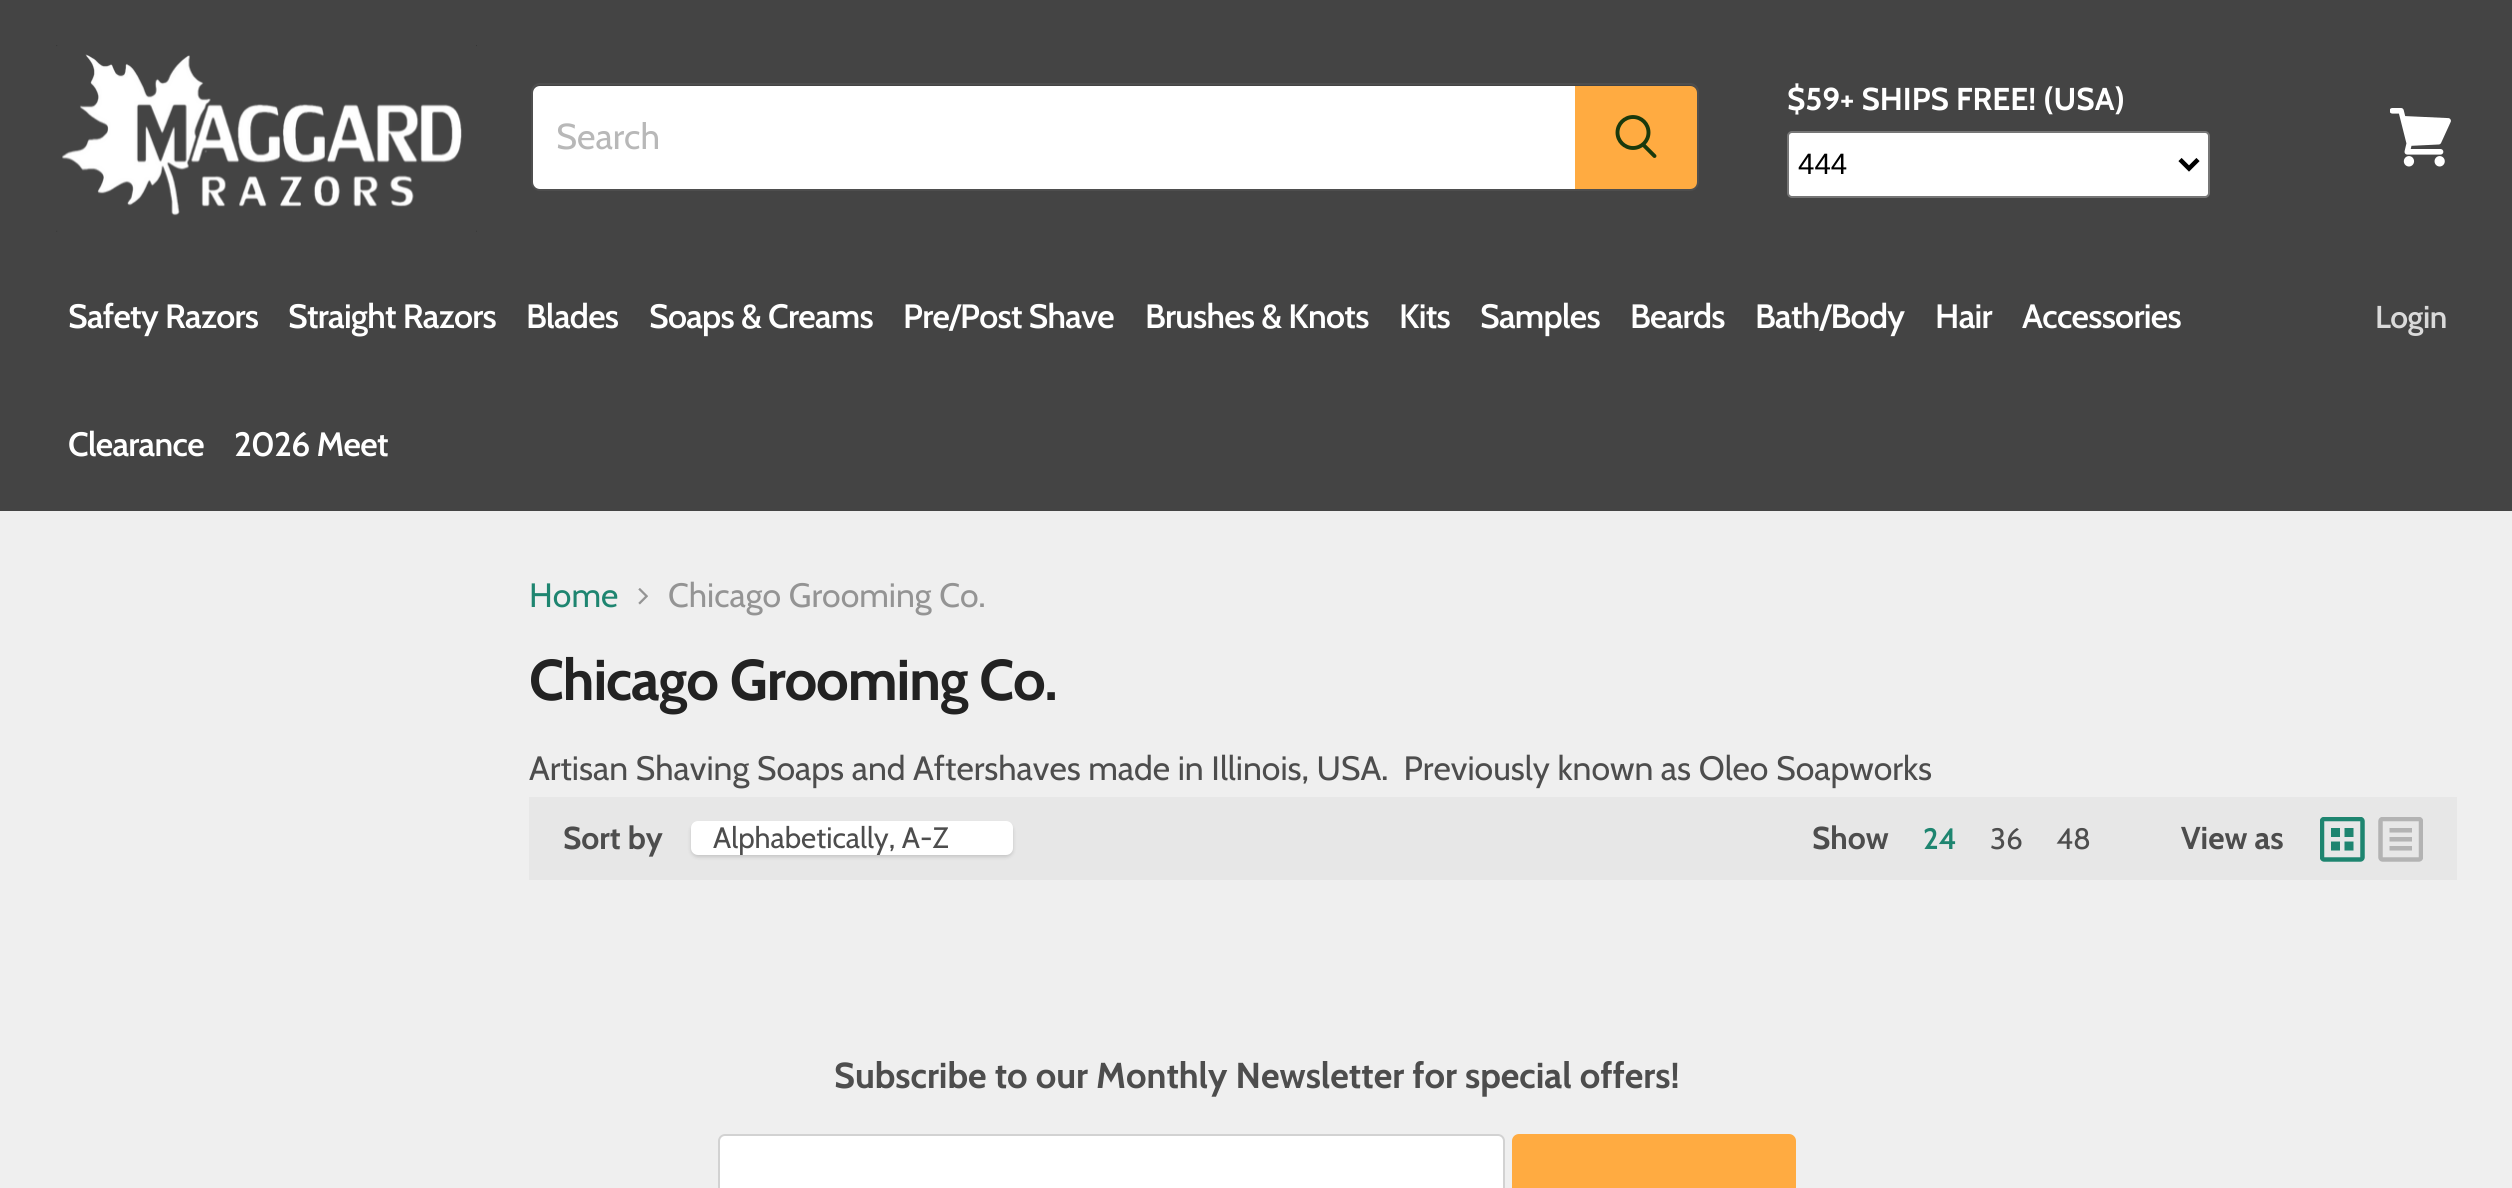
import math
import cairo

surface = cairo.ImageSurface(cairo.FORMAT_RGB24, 2512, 1188)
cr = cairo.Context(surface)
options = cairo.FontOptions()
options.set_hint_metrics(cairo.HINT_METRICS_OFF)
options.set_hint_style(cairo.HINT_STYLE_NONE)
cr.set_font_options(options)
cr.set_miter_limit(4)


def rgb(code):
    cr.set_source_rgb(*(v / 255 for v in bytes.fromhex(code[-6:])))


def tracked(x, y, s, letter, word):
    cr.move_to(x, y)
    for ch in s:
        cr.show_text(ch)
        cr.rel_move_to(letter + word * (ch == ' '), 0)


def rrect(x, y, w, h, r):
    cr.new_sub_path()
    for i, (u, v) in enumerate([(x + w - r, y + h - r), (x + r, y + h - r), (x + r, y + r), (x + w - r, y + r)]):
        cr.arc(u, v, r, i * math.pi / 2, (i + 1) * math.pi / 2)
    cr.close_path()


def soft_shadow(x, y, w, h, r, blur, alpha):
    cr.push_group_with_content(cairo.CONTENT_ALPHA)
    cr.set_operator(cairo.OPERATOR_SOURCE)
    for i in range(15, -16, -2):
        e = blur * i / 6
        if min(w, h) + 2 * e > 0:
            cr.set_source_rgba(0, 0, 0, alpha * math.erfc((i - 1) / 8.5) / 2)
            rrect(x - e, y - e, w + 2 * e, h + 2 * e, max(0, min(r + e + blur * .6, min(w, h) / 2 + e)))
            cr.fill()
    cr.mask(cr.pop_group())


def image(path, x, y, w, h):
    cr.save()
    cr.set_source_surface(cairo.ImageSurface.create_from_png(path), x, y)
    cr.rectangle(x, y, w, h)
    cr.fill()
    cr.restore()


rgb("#efefef")
cr.paint()
rgb("#444444")
cr.rectangle(0, 0, 2512, 511)
cr.fill()
image("img/1.png", 56, 45, 421, 187)
rrect(532, 84, 1166, 106, 8)
rgb("#4e4e4e")
cr.stroke()
rgb("#ffffff")
cr.new_path()
cr.move_to(540, 86)
cr.line_to(1575, 86)
cr.line_to(1575, 189)
cr.line_to(540, 189)
cr.curve_to(536, 189, 533, 186, 533, 182)
cr.line_to(533, 93)
cr.curve_to(533, 89, 536, 86, 540, 86)
cr.close_path()
cr.fill()
rgb("#ffab41")
cr.new_path()
cr.move_to(1576, 87)
cr.line_to(1690, 87)
cr.curve_to(1693.5, 87, 1696, 89.5, 1696, 93)
cr.line_to(1696, 182)
cr.curve_to(1696, 185.5, 1693.5, 188, 1690, 188)
cr.line_to(1576, 188)
cr.close_path()
cr.fill_preserve()
cr.stroke()
cr.new_path()
cr.move_to(1654.5, 156)
cr.line_to(1643.5, 145)
rgb("#1a390c")
cr.set_line_width(3.9)
cr.set_line_cap(cairo.LINE_CAP_ROUND)
cr.stroke()
cr.arc(1633, 132.5, 15.5, 0, 2 * math.pi)
cr.set_line_cap(cairo.LINE_CAP_BUTT)
cr.stroke()
rgb("#ffffff")
rrect(1788, 132, 421, 65, 4)
cr.fill_preserve()
rgb("#767676")
cr.set_line_width(2)
cr.stroke()
cr.new_path()
cr.move_to(2180, 159.5)
cr.line_to(2189, 168.5)
cr.line_to(2198, 159.5)
rgb("#000000")
cr.set_line_width(4.5)
cr.stroke()
image("img/2.png", 2390, 108, 61, 59)
image("img/3.png", 638, 588, 10, 17)
rgb("#e7e7e7")
cr.rectangle(529, 797, 1928, 83)
cr.fill()
rgb("#000000")
soft_shadow(691, 824, 322, 33, 7, 2, 0.15)
rgb("#ffffff")
rrect(691, 821, 322, 34, 7)
cr.fill()
image("img/4.png", 2320, 817, 45, 45)
image("img/5.png", 2378, 817, 45, 45)
rrect(718, 1134, 787, 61, 7)
cr.fill()
rrect(719, 1135, 785, 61, 6)
cr.set_source_rgba(0.133, 0.133, 0.133, 0.2)
cr.set_line_width(2)
cr.stroke()
rgb("#ffab41")
rrect(1513, 1135, 282, 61, 6)
cr.fill_preserve()
cr.stroke()
cr.select_font_face("Cabin")
cr.set_font_size(36)
rgb("#b8b8b8")
cr.move_to(556, 149)
cr.show_text("Search")
cr.select_font_face("Cabin", cairo.FONT_SLANT_NORMAL, cairo.FONT_WEIGHT_BOLD)
cr.set_font_size(31.6)
rgb("#ffffff")
cr.move_to(1787, 110)
cr.show_text("$59+ SHIPS FREE! (USA)")
cr.select_font_face("Liberation Sans")
cr.set_font_size(29.5)
rgb("#000000")
cr.move_to(1798, 174)
cr.show_text("444")
cr.select_font_face("Cabin SemiBold")
cr.set_font_size(33.75)
rgb("#ffffff")
for x, y, s in [
    (68, 328, "Safety Razors"),
    (288, 328, "Straight Razors"),
    (526, 328, "Blades"),
    (649, 328, "Soaps & Creams"),
    (903, 328, "Pre/Post Shave"),
    (1145, 328, "Brushes & Knots"),
    (1399, 328, "Kits"),
    (1480, 328, "Samples"),
    (1630, 328, "Beards"),
    (1755, 328, "Bath/Body"),
    (1935, 328, "Hair"),
    (2022, 328, "Accessories"),
    (68, 456, "Clearance"),
    (234, 456, "2026 Meet"),
]:
    tracked(x, y, s, -0.7, 0)
cr.set_font_size(31.6)
rgb("#dadada")
tracked(2375, 328, "Login", -0.5, 0)
cr.select_font_face("Cabin")
cr.set_font_size(33.75)
rgb("#1e8570")
cr.move_to(529, 607)
cr.show_text("Home")
rgb("#949494")
cr.move_to(668, 607)
cr.show_text("Chicago Grooming Co.")
cr.select_font_face("Cabin", cairo.FONT_SLANT_NORMAL, cairo.FONT_WEIGHT_BOLD)
cr.set_font_size(57.4)
rgb("#222222")
tracked(529, 700, "Chicago Grooming Co.", -1.1, 0)
cr.select_font_face("Cabin")
cr.set_font_size(33.75)
rgb("#4d4d4d")
cr.move_to(529, 780)
cr.show_text("Artisan Shaving Soaps and Aftershaves made in Illinois, USA.  Previously known as Oleo Soapworks")
cr.select_font_face("Cabin", cairo.FONT_SLANT_NORMAL, cairo.FONT_WEIGHT_BOLD)
cr.set_font_size(31.6)
cr.move_to(563, 849)
cr.show_text("Sort by")
cr.save()
cr.rectangle(713, 821, 237, 34)
cr.clip()
cr.select_font_face("Cabin")
cr.set_font_size(29.5)
cr.move_to(713, 848)
cr.show_text("Alphabetically, A-Z")
cr.restore()
cr.move_to(1812, 849)
cr.show_text("Show")
cr.select_font_face("Cabin SemiBold")
cr.set_font_size(29.5)
rgb("#1e8570")
cr.move_to(1923, 849)
cr.show_text("24")
cr.select_font_face("Cabin")
rgb("#4d4d4d")
cr.move_to(1990, 849)
cr.show_text("36")
cr.move_to(2056, 849)
cr.show_text("48")
cr.select_font_face("Cabin", cairo.FONT_SLANT_NORMAL, cairo.FONT_WEIGHT_BOLD)
cr.set_font_size(31.6)
cr.move_to(2181, 849)
cr.show_text("View as")
cr.set_font_size(36)
cr.move_to(834, 1088)
cr.show_text("Subscribe to our Monthly Newsletter for special offers!")
surface.write_to_png("page.png")
